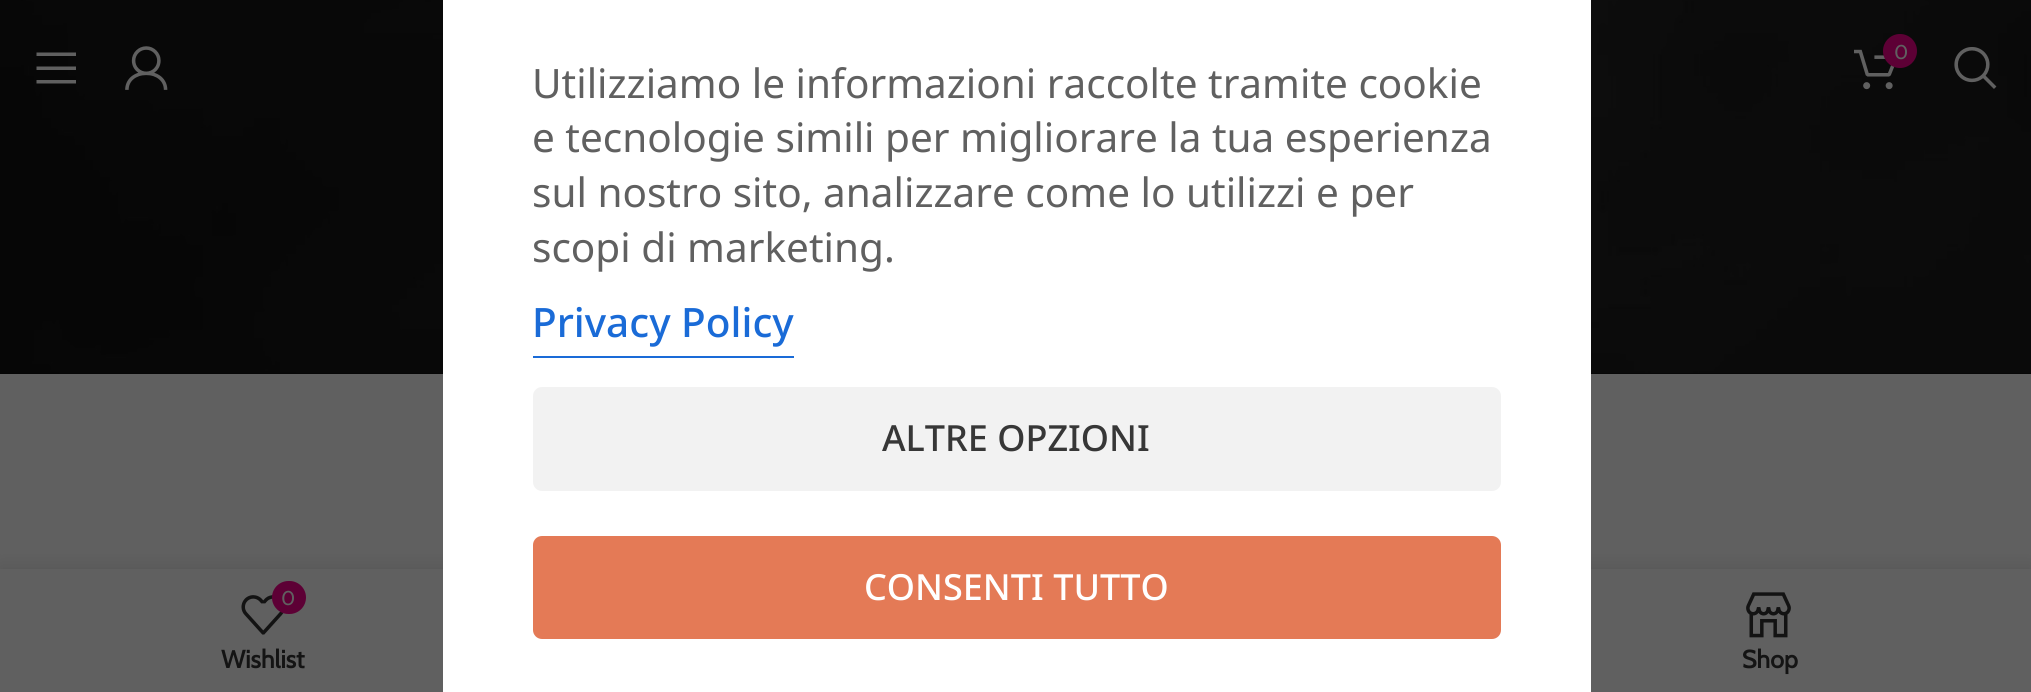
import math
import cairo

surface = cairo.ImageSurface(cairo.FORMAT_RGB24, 2031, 692)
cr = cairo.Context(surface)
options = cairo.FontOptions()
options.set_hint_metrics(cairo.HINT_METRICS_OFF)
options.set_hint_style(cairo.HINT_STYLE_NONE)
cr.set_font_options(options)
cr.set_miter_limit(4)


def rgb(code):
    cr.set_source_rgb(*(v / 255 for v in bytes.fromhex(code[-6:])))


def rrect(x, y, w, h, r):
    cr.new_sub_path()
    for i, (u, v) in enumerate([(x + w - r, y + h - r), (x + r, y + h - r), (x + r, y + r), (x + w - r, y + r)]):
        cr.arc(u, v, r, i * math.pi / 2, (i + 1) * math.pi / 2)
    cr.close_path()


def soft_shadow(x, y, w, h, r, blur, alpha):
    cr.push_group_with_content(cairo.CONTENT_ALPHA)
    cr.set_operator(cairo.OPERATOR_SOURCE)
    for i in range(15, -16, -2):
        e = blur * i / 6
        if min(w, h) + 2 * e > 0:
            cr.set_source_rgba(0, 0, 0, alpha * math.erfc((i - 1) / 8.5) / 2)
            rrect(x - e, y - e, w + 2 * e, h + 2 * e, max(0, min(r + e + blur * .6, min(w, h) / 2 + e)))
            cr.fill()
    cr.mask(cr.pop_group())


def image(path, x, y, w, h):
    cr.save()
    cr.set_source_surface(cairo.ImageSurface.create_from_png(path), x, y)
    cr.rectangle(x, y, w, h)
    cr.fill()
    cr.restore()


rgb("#606060")
cr.paint()
rgb("#040404")
cr.rectangle(0, 373, 2031, 1)
cr.fill()
image("img/1.png", 0, 0, 2031, 374)
rgb("#606060")
cr.new_path()
cr.move_to(36.5, 56)
cr.line_to(76, 56)
cr.line_to(76, 52.5)
cr.line_to(36.5, 52.5)
cr.close_path()
cr.move_to(36.5, 70)
cr.line_to(76, 70)
cr.line_to(76, 66.5)
cr.line_to(36.5, 66.5)
cr.close_path()
cr.move_to(36.5, 83.5)
cr.line_to(76, 83.5)
cr.line_to(76, 80)
cr.line_to(36.5, 80)
cr.close_path()
cr.fill()
image("img/2.png", 125, 46, 43, 44)
image("img/3.png", 1854, 49, 41, 41)
rgb("#5d0035")
cr.arc(1900, 51, 17, 0, 2 * math.pi)
cr.fill()
image("img/4.png", 1954, 47, 43, 42)
rgb("#000000")
soft_shadow(0, 569, 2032, 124, 0, 10, 0.12)
for x, y, w, h, color in [
    (0, 569, 2031, 123, "#606060"),
    (443, 0, 1148, 692, "#ffffff"),
    (533, 356, 261, 2, "#1a6bd7"),
]:
    rgb(color)
    cr.rectangle(x, y, w, h)
    cr.fill()
rgb("#f2f2f2")
rrect(533, 387, 968, 104, 9)
cr.fill()
rgb("#e47a56")
rrect(533, 536, 968, 103, 9)
cr.fill()
image("img/5.png", 241, 595, 43, 40)
rgb("#5d0035")
rrect(272, 581, 34, 33, 16.5)
cr.fill()
image("img/6.png", 1746, 592, 45, 46)
cr.select_font_face("Cabin")
cr.set_font_size(20)
rgb("#606060")
cr.move_to(1894, 59)
cr.show_text("0")
cr.select_font_face("Noto Sans")
cr.set_font_size(40.5)
for x, y, s in [
    (532, 98, "Utilizziamo le informazioni raccolte tramite cookie"),
    (532, 152, "e tecnologie simili per migliorare la tua esperienza"),
    (532, 207, "sul nostro sito, analizzare come lo utilizzi e per"),
    (532, 262, "scopi di marketing."),
]:
    cr.move_to(x, y)
    cr.show_text(s)
cr.select_font_face("Noto Sans Medium")
rgb("#1a6bd7")
cr.move_to(532, 337)
cr.show_text("Privacy Policy")
cr.set_font_size(36)
rgb("#373737")
cr.move_to(882, 451)
cr.show_text("ALTRE OPZIONI")
rgb("#ffffff")
cr.move_to(864, 600)
cr.show_text("CONSENTI TUTTO")
cr.select_font_face("Cabin")
cr.set_font_size(20)
rgb("#606060")
cr.move_to(281, 605)
cr.show_text("0")
cr.select_font_face("Cabin", cairo.FONT_SLANT_NORMAL, cairo.FONT_WEIGHT_BOLD)
cr.set_font_size(25)
rgb("#141414")
cr.move_to(221, 668)
cr.show_text("Wishlist")
cr.move_to(1742, 668)
cr.show_text("Shop")
surface.write_to_png("page.png")
